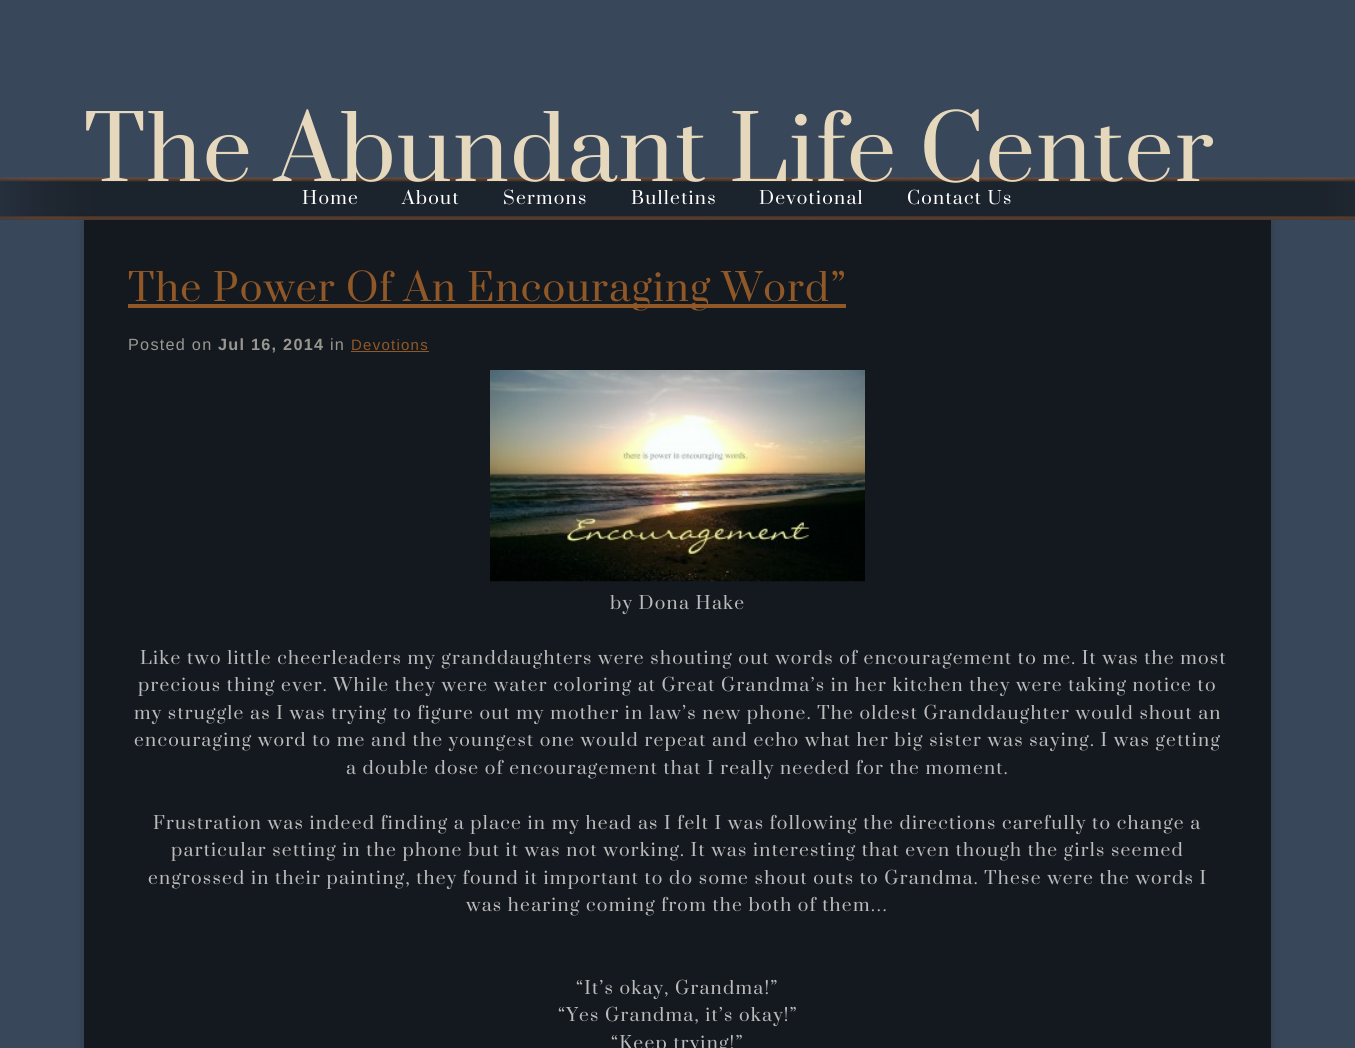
import math
import cairo

surface = cairo.ImageSurface(cairo.FORMAT_RGB24, 1355, 1048)
cr = cairo.Context(surface)
options = cairo.FontOptions()
options.set_hint_metrics(cairo.HINT_METRICS_OFF)
options.set_hint_style(cairo.HINT_STYLE_NONE)
cr.set_font_options(options)
cr.set_miter_limit(4)


def rgb(code):
    cr.set_source_rgb(*(v / 255 for v in bytes.fromhex(code[-6:])))


def tracked(x, y, s, letter, word):
    cr.move_to(x, y)
    for ch in s:
        cr.show_text(ch)
        cr.rel_move_to(letter + word * (ch == ' '), 0)


def rrect(x, y, w, h, r):
    cr.new_sub_path()
    for i, (u, v) in enumerate([(x + w - r, y + h - r), (x + r, y + h - r), (x + r, y + r), (x + w - r, y + r)]):
        cr.arc(u, v, r, i * math.pi / 2, (i + 1) * math.pi / 2)
    cr.close_path()


def soft_shadow(x, y, w, h, r, blur, alpha):
    cr.push_group_with_content(cairo.CONTENT_ALPHA)
    cr.set_operator(cairo.OPERATOR_SOURCE)
    for i in range(15, -16, -2):
        e = blur * i / 6
        if min(w, h) + 2 * e > 0:
            cr.set_source_rgba(0, 0, 0, alpha * math.erfc((i - 1) / 8.5) / 2)
            rrect(x - e, y - e, w + 2 * e, h + 2 * e, max(0, min(r + e + blur * .6, min(w, h) / 2 + e)))
            cr.fill()
    cr.mask(cr.pop_group())


def image(path, x, y, w, h):
    cr.save()
    cr.set_source_surface(cairo.ImageSurface.create_from_png(path), x, y)
    cr.rectangle(x, y, w, h)
    cr.fill()
    cr.restore()


rgb("#38475a")
cr.paint()
rgb("#1e1e1e")
soft_shadow(84, 223, 1187, 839, 0, 4.5, 0.28)
image("img/1.png", 0, 177, 1355, 43)
for x, y, w, h, color in [
    (84, 220, 1187, 828, "#14191f"),
    (128, 304, 718, 4, "#905727"),
    (351, 351, 78, 1, "#905727"),
]:
    rgb(color)
    cr.rectangle(x, y, w, h)
    cr.fill()
image("img/2.png", 490, 370, 375, 212)
cr.select_font_face("Prata")
cr.set_font_size(87.5)
rgb("#e6d8bd")
tracked(84, 181, "The Abundant Life Center", 1.25, 0)
cr.set_font_size(17.5)
rgb("#ffffff")
for x, y, s in [
    (302, 204, "Home"),
    (402, 204, "About"),
    (503, 204, "Sermons"),
    (631, 204, "Bulletins"),
    (759, 204, "Devotional"),
    (907, 204, "Contact Us"),
]:
    tracked(x, y, s, 1.25, 0)
cr.set_font_size(37.5)
rgb("#905727")
tracked(128, 301, "The Power Of An Encouraging Word”", 1.25, 0)
cr.select_font_face("Liberation Sans")
cr.set_font_size(16.25)
rgb("#999792")
tracked(128, 350, "Posted on", 1.25, 0)
cr.select_font_face("Liberation Sans", cairo.FONT_SLANT_NORMAL, cairo.FONT_WEIGHT_BOLD)
tracked(218, 350, "Jul 16, 2014", 1.25, 0)
cr.select_font_face("Liberation Sans")
tracked(330, 350, "in", 1.25, 0)
cr.set_font_size(15)
rgb("#905727")
tracked(351, 350, "Devotions", 1.25, 0)
cr.select_font_face("Prata")
cr.set_font_size(17.5)
rgb("#bbbbbb")
for x, y, s in [
    (610, 609, "by Dona Hake"),
    (140, 664, "Like two little cheerleaders my granddaughters were shouting out words of encouragement to me. It was the most"),
    (138, 691, "precious thing ever. While they were water coloring at Great Grandma’s in her kitchen they were taking notice to"),
    (134, 719, "my struggle as I was trying to figure out my mother in law’s new phone. The oldest Granddaughter would shout an"),
    (134, 746, "encouraging word to me and the youngest one would repeat and echo what her big sister was saying. I was getting"),
    (346, 774, "a double dose of encouragement that I really needed for the moment."),
    (153, 829, "Frustration was indeed finding a place in my head as I felt I was following the directions carefully to change a"),
    (171, 856, "particular setting in the phone but it was not working. It was interesting that even though the girls seemed"),
    (148, 884, "engrossed in their painting, they found it important to do some shout outs to Grandma. These were the words I"),
    (466, 911, "was hearing coming from the both of them"),
]:
    tracked(x, y, s, 1.25, 0)
cr.select_font_face("Liberation Serif")
tracked(870, 911, "…", 1.25, 0)
cr.select_font_face("Prata")
for x, y, s in [
    (576, 994, "“It’s okay, Grandma!”"),
    (558, 1021, "“Yes Grandma, it’s okay!”"),
    (611, 1049, "“Keep trying!”"),
]:
    tracked(x, y, s, 1.25, 0)
surface.write_to_png("page.png")
